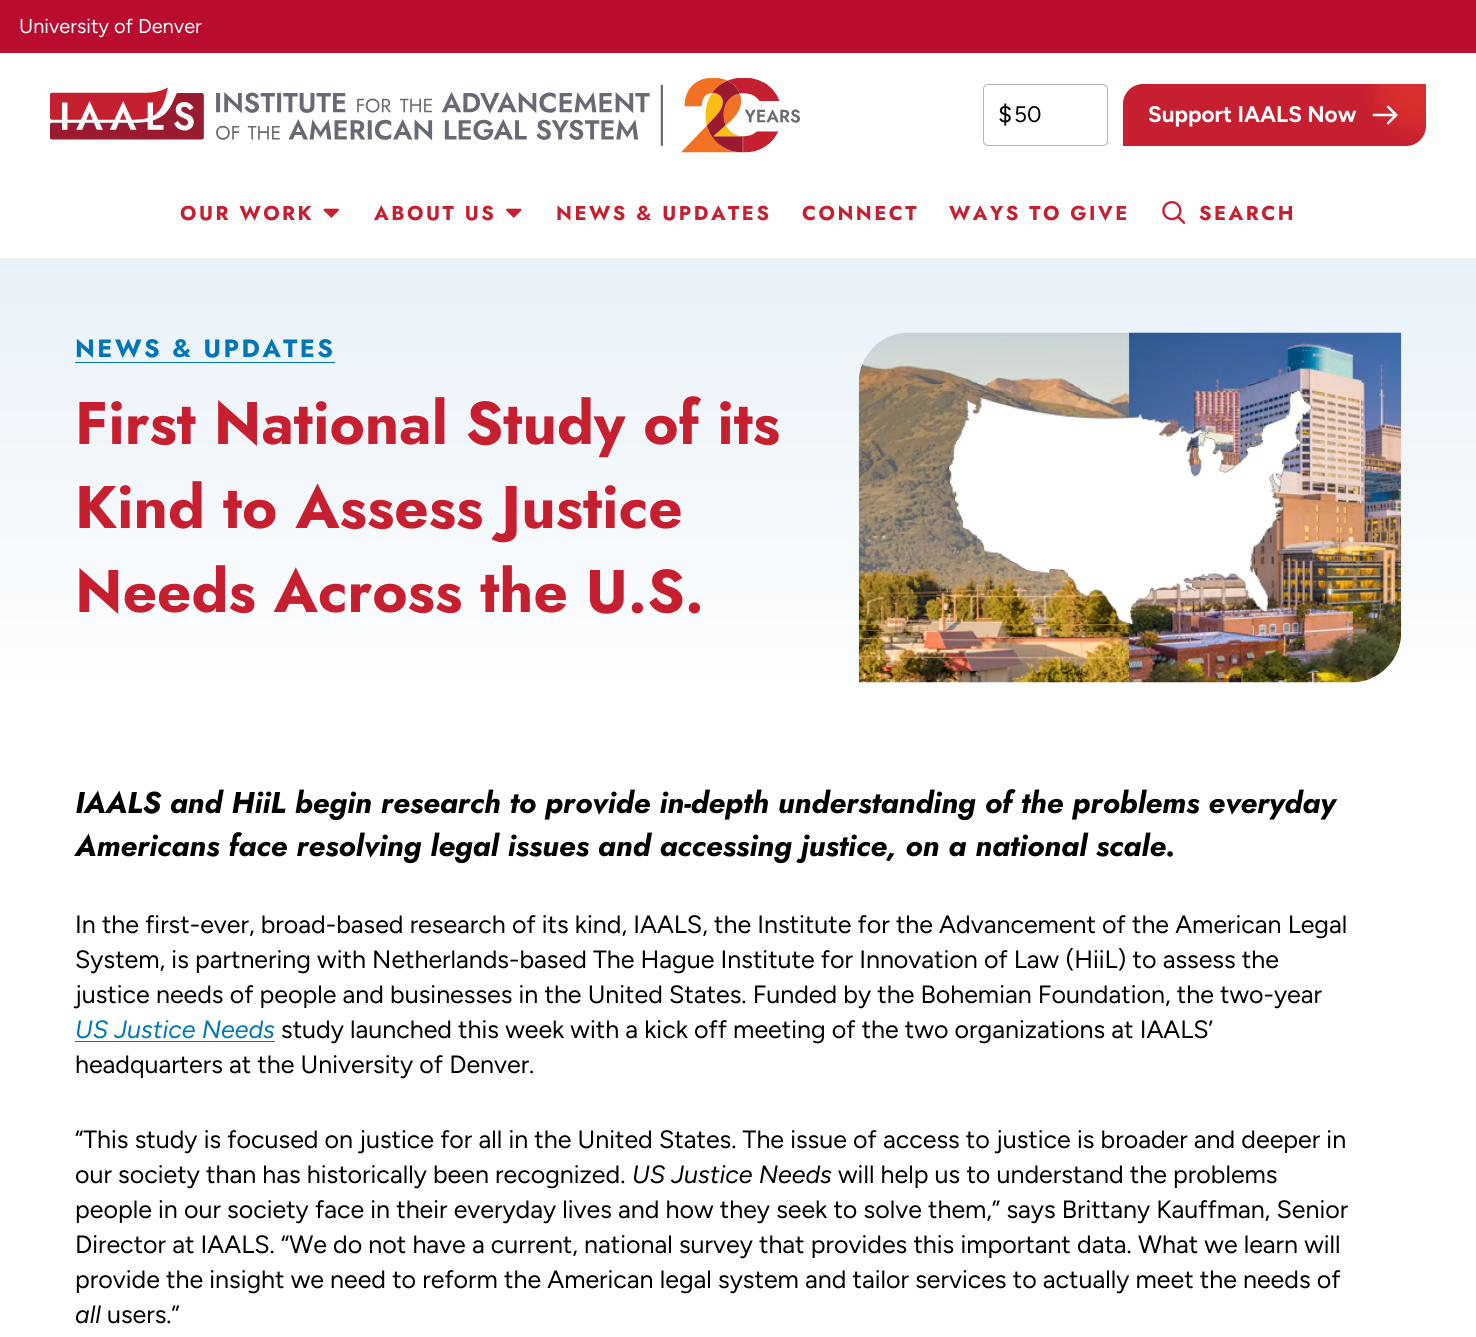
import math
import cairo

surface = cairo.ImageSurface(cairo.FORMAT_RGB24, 1476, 1337)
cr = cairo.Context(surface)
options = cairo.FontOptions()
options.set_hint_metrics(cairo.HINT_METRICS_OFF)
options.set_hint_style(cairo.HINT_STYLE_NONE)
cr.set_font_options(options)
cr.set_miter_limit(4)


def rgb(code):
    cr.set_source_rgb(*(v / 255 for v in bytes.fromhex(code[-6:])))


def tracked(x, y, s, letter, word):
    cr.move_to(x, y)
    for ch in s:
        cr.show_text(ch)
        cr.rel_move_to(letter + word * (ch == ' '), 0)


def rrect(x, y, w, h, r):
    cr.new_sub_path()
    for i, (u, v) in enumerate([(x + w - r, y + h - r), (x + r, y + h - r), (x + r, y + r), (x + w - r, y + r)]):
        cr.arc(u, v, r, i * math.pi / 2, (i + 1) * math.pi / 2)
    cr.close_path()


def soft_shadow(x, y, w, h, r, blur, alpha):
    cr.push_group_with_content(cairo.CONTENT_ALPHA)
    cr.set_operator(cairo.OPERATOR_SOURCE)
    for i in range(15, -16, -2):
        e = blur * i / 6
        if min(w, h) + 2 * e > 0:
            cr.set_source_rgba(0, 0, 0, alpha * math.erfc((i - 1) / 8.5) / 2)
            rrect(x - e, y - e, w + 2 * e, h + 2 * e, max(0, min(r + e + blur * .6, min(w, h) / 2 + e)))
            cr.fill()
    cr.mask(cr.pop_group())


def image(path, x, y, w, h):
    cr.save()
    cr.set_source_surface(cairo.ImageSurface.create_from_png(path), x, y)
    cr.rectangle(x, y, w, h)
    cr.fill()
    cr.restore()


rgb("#ffffff")
cr.paint()
rgb("#ba0c2f")
cr.rectangle(0, 0, 1476, 53)
cr.fill()
image("img/1.png", 50, 78, 750, 75)
rrect(983.5, 84.5, 124, 61, 4.5)
rgb("#b4b1b9")
cr.set_line_width(1)
cr.stroke()
rgb("#c51f30")
cr.new_path()
cr.move_to(1143, 84)
cr.line_to(1426, 84)
cr.line_to(1426, 126)
cr.curve_to(1426, 137, 1417, 146, 1406, 146)
cr.line_to(1123, 146)
cr.line_to(1123, 104)
cr.curve_to(1123, 93, 1132, 84, 1143, 84)
cr.close_path()
cr.fill()
cr.save()
cr.new_path()
cr.move_to(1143, 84)
cr.line_to(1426, 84)
cr.line_to(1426, 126)
cr.curve_to(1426, 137, 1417, 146, 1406, 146)
cr.line_to(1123, 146)
cr.line_to(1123, 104)
cr.curve_to(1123, 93, 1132, 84, 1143, 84)
cr.close_path()
cr.clip()
rgb("#ef3e2d")
soft_shadow(1376, 39, 90, 90, 45, 10, 0.5)
cr.restore()
image("img/2.png", 1372, 105, 26, 20)
image("img/3.png", 323, 208, 16, 10)
image("img/4.png", 506, 208, 16, 10)
image("img/5.png", 1162, 201, 24, 23)
gradient = cairo.LinearGradient(738, 733, 738, 258)
gradient.add_color_stop_rgba(0, 1, 1, 1, 1)
gradient.add_color_stop_rgba(1, 0.91, 0.945, 0.976, 1)
cr.set_source(gradient)
cr.rectangle(0, 258, 1476, 423)
cr.fill()
gradient = cairo.LinearGradient(205, 326, 205, 363)
gradient.add_color_stop_rgba(0, 0.925, 0.957, 0.98, 1)
gradient.add_color_stop_rgba(0.97, 0.925, 0.957, 0.98, 1)
gradient.add_color_stop_rgba(0.97, 0, 0.463, 0.714, 1)
gradient.add_color_stop_rgba(1, 0, 0.463, 0.714, 1)
cr.set_source(gradient)
cr.rectangle(75, 362, 260, 1)
cr.fill()
image("img/6.png", 858, 332, 544, 351)
rgb("#0076b6")
cr.rectangle(75, 1041, 200, 1)
cr.fill()
cr.select_font_face("Figtree")
cr.set_font_size(20)
rgb("#ffffff")
cr.move_to(19, 33)
cr.show_text("University of Denver")
cr.set_font_size(25)
rgb("#000000")
cr.move_to(998, 123)
cr.show_text("$")
cr.set_font_size(22.5)
cr.move_to(1014, 122)
cr.show_text("50")
cr.select_font_face("Figtree", cairo.FONT_SLANT_NORMAL, cairo.FONT_WEIGHT_BOLD)
rgb("#ffffff")
cr.move_to(1148, 122)
cr.show_text("Support IAALS Now")
cr.select_font_face("Jost", cairo.FONT_SLANT_NORMAL, cairo.FONT_WEIGHT_BOLD)
cr.set_font_size(20)
rgb("#c51f30")
for x, y, s in [
    (180, 220, "OUR WORK"),
    (374, 220, "ABOUT US"),
    (556, 220, "NEWS & UPDATES"),
    (802, 220, "CONNECT"),
    (949, 220, "WAYS TO GIVE"),
    (1199, 220, "SEARCH"),
]:
    tracked(x, y, s, 2.5, 0)
cr.set_font_size(25)
rgb("#0076b6")
tracked(75, 357, "NEWS & UPDATES", 2.5, 0)
cr.set_font_size(60)
rgb("#c51f30")
for x, y, s in [
    (75, 444, "First National Study of its"),
    (75, 528, "Kind to Assess Justice"),
    (75, 612, "Needs Across the U.S."),
]:
    cr.move_to(x, y)
    cr.show_text(s)
cr.select_font_face("Jost", cairo.FONT_SLANT_ITALIC, cairo.FONT_WEIGHT_BOLD)
cr.set_font_size(30)
rgb("#000000")
cr.move_to(75, 813)
cr.show_text("IAALS and HiiL begin research to provide in-depth understanding of the problems everyday")
cr.move_to(75, 856)
cr.show_text("Americans face resolving legal issues and accessing justice, on a national scale.")
cr.select_font_face("Figtree")
cr.set_font_size(25)
for x, y, s in [
    (75, 933, "In the first-ever, broad-based research of its kind, IAALS, the Institute for the Advancement of the American Legal"),
    (75, 968, "System, is partnering with Netherlands-based The Hague Institute for Innovation of Law (HiiL) to assess the"),
    (75, 1003, "justice needs of people and businesses in the United States. Funded by the Bohemian Foundation, the two-year"),
]:
    cr.move_to(x, y)
    cr.show_text(s)
cr.select_font_face("Figtree", cairo.FONT_SLANT_ITALIC)
rgb("#0076b6")
cr.move_to(75, 1038)
cr.show_text("US Justice Needs")
cr.select_font_face("Figtree")
rgb("#000000")
for x, y, s in [
    (281, 1038, "study launched this week with a kick off meeting of the two organizations at IAALS’"),
    (75, 1073, "headquarters at the University of Denver."),
    (75, 1148, "“This study is focused on justice for all in the United States. The issue of access to justice is broader and deeper in"),
    (75, 1183, "our society than has historically been recognized."),
]:
    cr.move_to(x, y)
    cr.show_text(s)
cr.select_font_face("Figtree", cairo.FONT_SLANT_ITALIC)
cr.move_to(632, 1183)
cr.show_text("US Justice Needs")
cr.select_font_face("Figtree")
for x, y, s in [
    (838, 1183, "will help us to understand the problems"),
    (75, 1218, "people in our society face in their everyday lives and how they seek to solve them,” says Brittany Kauffman, Senior"),
    (75, 1253, "Director at IAALS. “We do not have a current, national survey that provides this important data. What we learn will"),
    (75, 1288, "provide the insight we need to reform the American legal system and tailor services to actually meet the needs of"),
]:
    cr.move_to(x, y)
    cr.show_text(s)
cr.select_font_face("Figtree", cairo.FONT_SLANT_ITALIC)
cr.move_to(75, 1323)
cr.show_text("all")
cr.select_font_face("Figtree")
cr.move_to(107, 1323)
cr.show_text("users.”")
surface.write_to_png("page.png")
